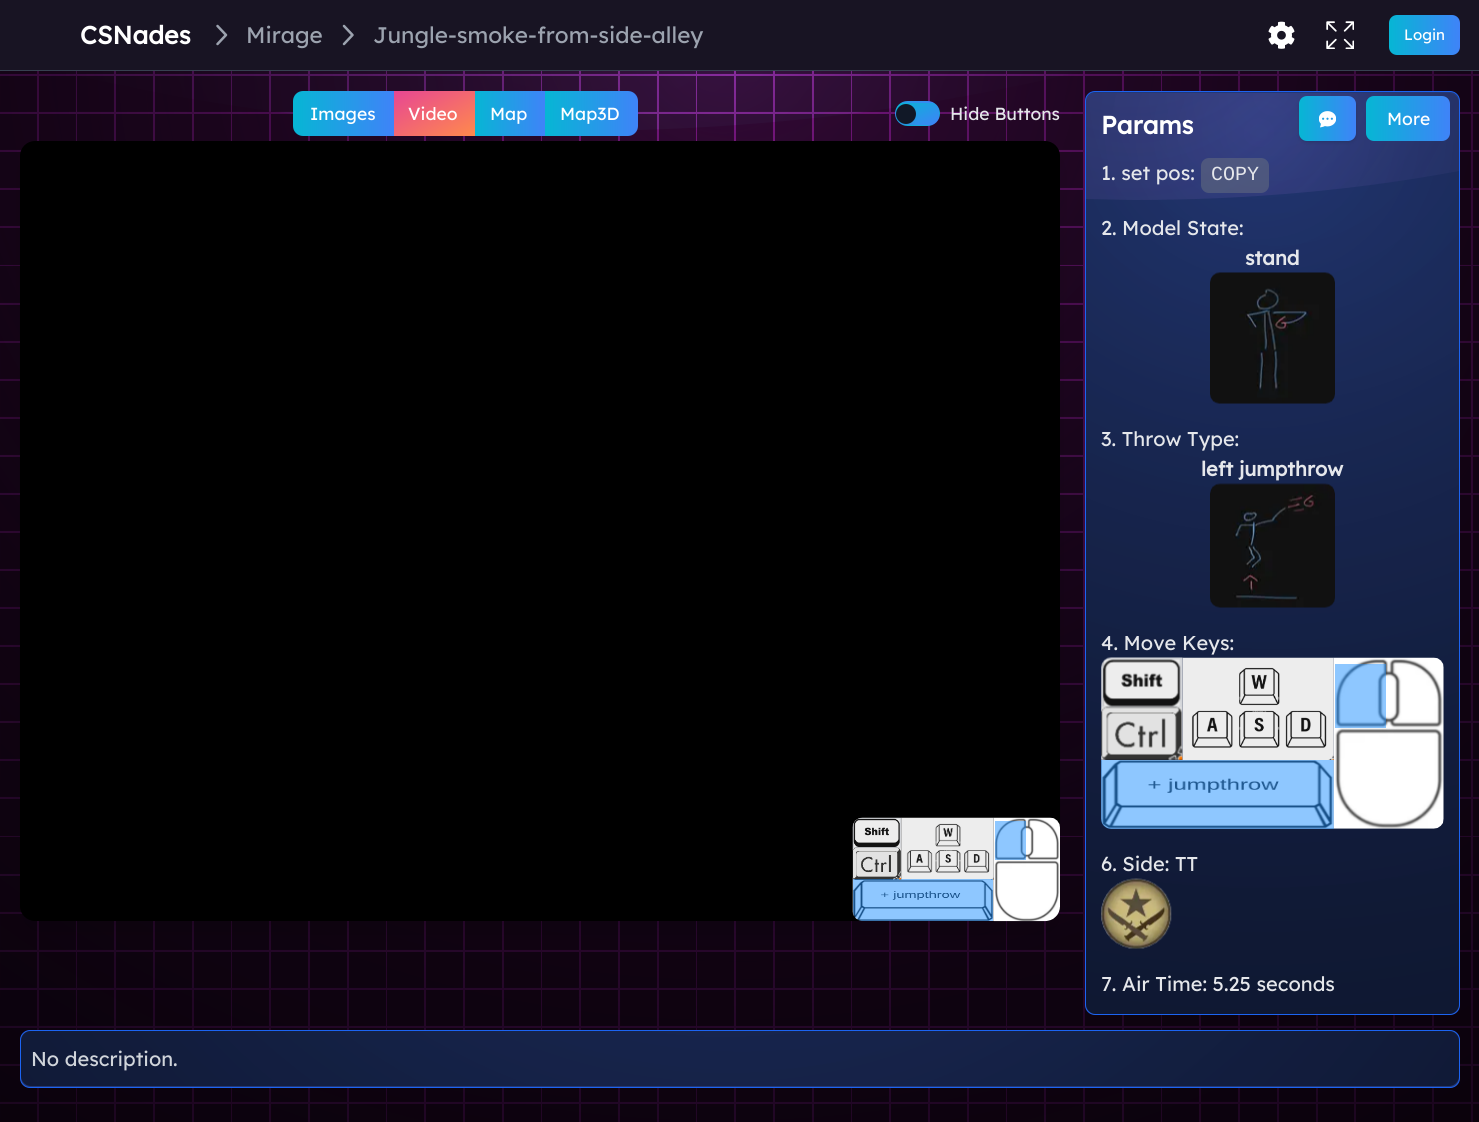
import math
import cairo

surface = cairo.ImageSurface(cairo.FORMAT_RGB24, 1479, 1122)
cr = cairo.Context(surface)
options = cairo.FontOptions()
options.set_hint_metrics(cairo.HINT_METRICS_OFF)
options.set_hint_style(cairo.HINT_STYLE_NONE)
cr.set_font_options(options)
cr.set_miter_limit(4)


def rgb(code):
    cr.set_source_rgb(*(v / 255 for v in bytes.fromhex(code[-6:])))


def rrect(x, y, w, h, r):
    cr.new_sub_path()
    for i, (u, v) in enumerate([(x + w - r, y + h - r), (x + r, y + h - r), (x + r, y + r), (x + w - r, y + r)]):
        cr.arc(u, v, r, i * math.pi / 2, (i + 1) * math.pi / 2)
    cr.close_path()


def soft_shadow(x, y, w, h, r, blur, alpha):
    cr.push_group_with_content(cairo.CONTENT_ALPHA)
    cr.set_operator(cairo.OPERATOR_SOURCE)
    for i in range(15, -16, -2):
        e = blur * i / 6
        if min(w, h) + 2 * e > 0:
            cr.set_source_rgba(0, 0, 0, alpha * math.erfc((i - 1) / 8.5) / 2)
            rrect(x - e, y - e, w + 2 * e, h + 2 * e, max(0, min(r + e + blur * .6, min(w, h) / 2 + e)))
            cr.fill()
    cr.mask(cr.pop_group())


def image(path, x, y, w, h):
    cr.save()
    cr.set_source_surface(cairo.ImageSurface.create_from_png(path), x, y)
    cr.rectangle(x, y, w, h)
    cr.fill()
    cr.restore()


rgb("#86198f")
cr.paint()
gradient = cairo.RadialGradient(0, 0, 0, 0, 0, 1)
gradient.set_matrix(cairo.Matrix(1 / 692, 0, 0, 1 / 1254, -1 * 571 / 692, -1 * -561 / 1254))
gradient.add_color_stop_rgba(0, 0.596, 0.29, 0.753, 1)
gradient.add_color_stop_rgba(1, 0.525, 0.098, 0.561, 1)
cr.set_source(gradient)
cr.new_path()
cr.move_to(571, 131)
cr.curve_to(-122, 131, -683, -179, -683, -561)
cr.curve_to(-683, -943, -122, -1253, 571, -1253)
cr.curve_to(1263, -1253, 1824, -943, 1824, -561)
cr.curve_to(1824, -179, 1263, 131, 571, 131)
cr.close_path()
cr.fill()
gradient = cairo.RadialGradient(0, 0, 0, 0, 0, 1)
gradient.set_matrix(cairo.Matrix(1 / 1385, 0, 0, 1 / 1299, -1 * 723 / 1385, -1 * 53 / 1299))
gradient.add_color_stop_rgba(0, 0.102, 0.02, 0.114, 0)
gradient.add_color_stop_rgba(0.15, 0.102, 0.02, 0.114, 0.23)
gradient.add_color_stop_rgba(0.33, 0.102, 0.02, 0.114, 0.43)
gradient.add_color_stop_rgba(0.53, 0.102, 0.02, 0.114, 0.64)
gradient.add_color_stop_rgba(1, 0.102, 0.02, 0.114, 1)
cr.set_source(gradient)
cr.rectangle(0, 71, 1479, 1051)
cr.fill()
gradient = cairo.RadialGradient(0, 0, 0, 0, 0, 1)
gradient.set_matrix(cairo.Matrix(1 / 1083, 0, 0, 1 / 1016, -1 * 743 / 1083, -1 * 0 / 1016))
gradient.add_color_stop_rgba(0, 0.102, 0.02, 0.114, 0)
gradient.add_color_stop_rgba(0.15, 0.102, 0.02, 0.114, 0.11)
gradient.add_color_stop_rgba(0.33, 0.102, 0.02, 0.114, 0.22)
gradient.add_color_stop_rgba(0.53, 0.102, 0.02, 0.114, 0.32)
gradient.add_color_stop_rgba(1, 0.102, 0.02, 0.114, 0.5)
cr.set_source(gradient)
cr.rectangle(0, 71, 1479, 1051)
cr.fill()
rgb("#181423")
cr.rectangle(0, 0, 1479, 70)
cr.fill()
rgb("#374151")
cr.rectangle(0, 70, 1479, 1)
cr.fill()
cr.new_path()
cr.move_to(217.5, 26)
cr.line_to(226, 35)
cr.line_to(217.5, 44)
rgb("#9ca3af")
cr.set_line_width(2.5)
cr.set_line_cap(cairo.LINE_CAP_ROUND)
cr.set_line_join(cairo.LINE_JOIN_ROUND)
cr.stroke()
cr.new_path()
cr.move_to(344, 26)
cr.line_to(352.5, 35)
cr.line_to(344, 44)
cr.stroke()
image("img/1.png", 1268, 21, 27, 28)
image("img/2.png", 1326, 21, 28, 28)
gradient = cairo.LinearGradient(1389, 35, 1460, 35)
gradient.add_color_stop_rgba(0, 0.024, 0.714, 0.831, 1)
gradient.add_color_stop_rgba(1, 0.247, 0.514, 0.973, 1)
cr.set_source(gradient)
rrect(1389, 15, 71, 40, 8)
cr.fill()
image("img/3.png", 0, 71, 1479, 1051)
gradient = cairo.LinearGradient(293, 114, 394, 114)
gradient.add_color_stop_rgba(0, 0.024, 0.714, 0.831, 1)
gradient.add_color_stop_rgba(1, 0.247, 0.514, 0.973, 1)
cr.set_source(gradient)
cr.new_path()
cr.move_to(303, 91)
cr.line_to(394, 91)
cr.line_to(394, 136)
cr.line_to(303, 136)
cr.curve_to(297.5, 136, 293, 131.5, 293, 126)
cr.line_to(293, 101)
cr.curve_to(293, 95.5, 297.5, 91, 303, 91)
cr.close_path()
cr.fill()
gradient = cairo.LinearGradient(415, 79, 453, 148)
gradient.add_color_stop_rgba(0, 0.906, 0.275, 0.58, 1)
gradient.add_color_stop_rgba(1, 1, 0.541, 0.298, 1)
cr.set_source(gradient)
cr.rectangle(394, 91, 81, 45)
cr.fill()
gradient = cairo.LinearGradient(475, 114, 545, 114)
gradient.add_color_stop_rgba(0, 0.024, 0.714, 0.831, 1)
gradient.add_color_stop_rgba(1, 0.247, 0.514, 0.973, 1)
cr.set_source(gradient)
cr.rectangle(475, 91, 70, 45)
cr.fill()
gradient = cairo.LinearGradient(545, 114, 638, 114)
gradient.add_color_stop_rgba(0, 0.024, 0.714, 0.831, 1)
gradient.add_color_stop_rgba(1, 0.247, 0.514, 0.973, 1)
cr.set_source(gradient)
cr.new_path()
cr.move_to(545, 91)
cr.line_to(628, 91)
cr.curve_to(633.5, 91, 638, 95.5, 638, 101)
cr.line_to(638, 126)
cr.curve_to(638, 131.5, 633.5, 136, 628, 136)
cr.line_to(545, 136)
cr.close_path()
cr.fill()
cr.save()
rrect(895, 101, 45, 25, 12.5)
cr.clip()
gradient = cairo.LinearGradient(908, 74, 927, 109)
gradient.add_color_stop_rgba(0, 0.024, 0.714, 0.831, 1)
gradient.add_color_stop_rgba(1, 0.247, 0.514, 0.973, 1)
cr.set_source(gradient)
cr.rectangle(896, 101, 43, 2)
cr.fill()
gradient = cairo.LinearGradient(866, 96, 884, 131)
gradient.add_color_stop_rgba(0, 0.024, 0.714, 0.831, 1)
gradient.add_color_stop_rgba(1, 0.247, 0.514, 0.973, 1)
cr.set_source(gradient)
cr.rectangle(895, 103, 1, 22)
cr.fill()
gradient = cairo.LinearGradient(908, 96, 927, 131)
gradient.add_color_stop_rgba(0, 0.024, 0.714, 0.831, 1)
gradient.add_color_stop_rgba(1, 0.247, 0.514, 0.973, 1)
cr.set_source(gradient)
cr.rectangle(896, 103, 43, 22)
cr.fill()
gradient = cairo.LinearGradient(951, 96, 969, 131)
gradient.add_color_stop_rgba(0, 0.024, 0.714, 0.831, 1)
gradient.add_color_stop_rgba(1, 0.247, 0.514, 0.973, 1)
cr.set_source(gradient)
cr.rectangle(939, 103, 1, 22)
cr.fill()
gradient = cairo.LinearGradient(908, 119, 927, 154)
gradient.add_color_stop_rgba(0, 0.024, 0.714, 0.831, 1)
gradient.add_color_stop_rgba(1, 0.247, 0.514, 0.973, 1)
cr.set_source(gradient)
cr.rectangle(896, 125, 43, 1)
cr.fill()
cr.restore()
rgb("#000000")
soft_shadow(901, 114, 10, 10, 5, 4, 0.1)
rgb("#111827")
cr.arc(906, 114, 10, 0, 2 * math.pi)
cr.fill()
rgb("#000000")
soft_shadow(24, 158, 1032, 772, 11, 9.5, 0.1)
rgb("#000000")
rrect(20, 141, 1040, 780, 15)
cr.fill()
image("img/4.png", 852, 817, 50, 63)
image("img/5.png", 901, 817, 93, 63)
image("img/6.png", 852, 880, 142, 41)
cr.set_source_rgba(0.118, 0.565, 1, 0.5)
cr.new_path()
cr.move_to(853, 879)
cr.line_to(993, 879)
cr.line_to(993, 921)
cr.line_to(863, 921)
cr.curve_to(857.5, 921, 853, 916.5, 853, 911)
cr.close_path()
cr.fill()
image("img/7.png", 993, 817, 67, 105)
cr.rectangle(995, 821, 31, 39)
cr.fill()
rgb("#233876")
rrect(1085.5, 91.5, 374, 923, 9.5)
cr.fill_preserve()
rgb("#1c64f2")
cr.set_line_width(1)
cr.set_line_cap(cairo.LINE_CAP_BUTT)
cr.set_line_join(cairo.LINE_JOIN_MITER)
cr.stroke()
gradient = cairo.RadialGradient(0, 0, 0, 0, 0, 1)
gradient.set_matrix(cairo.Matrix(1 / 568, 0, 0, 1 / 1029, -1 * 1134 / 568, -1 * -368 / 1029))
gradient.add_color_stop_rgba(0, 0.675, 0.498, 0.957, 0.3)
gradient.add_color_stop_rgba(1, 0.675, 0.498, 0.957, 0)
cr.set_source(gradient)
cr.new_path()
cr.move_to(1134, 200)
cr.curve_to(1248, 200, 1357, 190, 1459, 171)
cr.line_to(1459, 103)
cr.curve_to(1459, 97, 1455, 93, 1449, 93)
cr.line_to(1096, 93)
cr.curve_to(1090, 93, 1086, 97, 1086, 103)
cr.line_to(1086, 199)
cr.close_path()
cr.fill()
gradient = cairo.RadialGradient(0, 0, 0, 0, 0, 1)
gradient.set_matrix(cairo.Matrix(1 / 1136, 0, 0, 1 / 1066, -1 * 1259 / 1136, -1 * 136 / 1066))
gradient.add_color_stop_rgba(0, 0, 0, 0, 0)
gradient.add_color_stop_rgba(0.15, 0, 0, 0, 0.11)
gradient.add_color_stop_rgba(0.33, 0, 0, 0, 0.22)
gradient.add_color_stop_rgba(0.53, 0, 0, 0, 0.32)
gradient.add_color_stop_rgba(1, 0, 0, 0, 0.5)
cr.set_source(gradient)
rrect(1086, 93, 373, 921, 10)
cr.fill()
gradient = cairo.RadialGradient(0, 0, 0, 0, 0, 1)
gradient.set_matrix(cairo.Matrix(1 / 889, 0, 0, 1 / 834, -1 * 1275 / 889, -1 * 93 / 834))
gradient.add_color_stop_rgba(0, 0, 0, 0, 0)
gradient.add_color_stop_rgba(0.15, 0, 0, 0, 0.06)
gradient.add_color_stop_rgba(0.33, 0, 0, 0, 0.11)
gradient.add_color_stop_rgba(0.53, 0, 0, 0, 0.16)
gradient.add_color_stop_rgba(1, 0, 0, 0, 0.25)
cr.set_source(gradient)
rrect(1086, 93, 373, 921, 10)
cr.fill()
cr.set_source_rgba(0.42, 0.447, 0.502, 0.5)
rrect(1201, 158, 68, 35, 8)
cr.fill()
image("img/8.png", 1210, 272, 125, 132)
image("img/9.png", 1210, 483, 125, 125)
image("img/10.png", 1101, 657, 83, 104)
image("img/11.png", 1182, 657, 152, 103)
image("img/12.png", 1101, 760, 233, 69)
cr.set_source_rgba(0.118, 0.565, 1, 0.5)
cr.new_path()
cr.move_to(1101, 760)
cr.line_to(1334, 760)
cr.line_to(1334, 829)
cr.line_to(1111, 829)
cr.curve_to(1105.5, 829, 1101, 824.5, 1101, 819)
cr.close_path()
cr.fill()
image("img/13.png", 1333, 657, 111, 172)
cr.rectangle(1335, 664, 51, 64)
cr.fill()
image("img/14.png", 1101, 878, 71, 71)
rgb("#000000")
soft_shadow(1300, 99, 55, 42, 6, 1, 0.1)
soft_shadow(1299, 98, 57, 45, 8, 2, 0.1)
gradient = cairo.LinearGradient(1299, 119, 1356, 119)
gradient.add_color_stop_rgba(0, 0.024, 0.714, 0.831, 1)
gradient.add_color_stop_rgba(1, 0.247, 0.514, 0.973, 1)
cr.set_source(gradient)
rrect(1299, 96, 57, 45, 8)
cr.fill()
image("img/15.png", 1319, 111, 17, 17)
gradient = cairo.LinearGradient(1366, 119, 1450, 119)
gradient.add_color_stop_rgba(0, 0.024, 0.714, 0.831, 1)
gradient.add_color_stop_rgba(1, 0.247, 0.514, 0.973, 1)
cr.set_source(gradient)
rrect(1366, 96, 84, 45, 8)
cr.fill()
rgb("#233876")
rrect(20.5, 1030.5, 1439, 57, 9.5)
cr.fill_preserve()
rgb("#1c64f2")
cr.stroke()
gradient = cairo.RadialGradient(0, 0, 0, 0, 0, 1)
gradient.set_matrix(cairo.Matrix(1 / 1233, 0, 0, 1 / 1157, -1 * 725 / 1233, -1 * 606 / 1157))
gradient.add_color_stop_rgba(0, 0, 0, 0, 0)
gradient.add_color_stop_rgba(0.15, 0, 0, 0, 0.11)
gradient.add_color_stop_rgba(0.33, 0, 0, 0, 0.22)
gradient.add_color_stop_rgba(0.53, 0, 0, 0, 0.32)
gradient.add_color_stop_rgba(1, 0, 0, 0, 0.5)
cr.set_source(gradient)
rrect(21, 1031, 1438, 55, 10)
cr.fill()
gradient = cairo.RadialGradient(0, 0, 0, 0, 0, 1)
gradient.set_matrix(cairo.Matrix(1 / 964, 0, 0, 1 / 905, -1 * 742 / 964, -1 * 559 / 905))
gradient.add_color_stop_rgba(0, 0, 0, 0, 0)
gradient.add_color_stop_rgba(0.15, 0, 0, 0, 0.06)
gradient.add_color_stop_rgba(0.33, 0, 0, 0, 0.11)
gradient.add_color_stop_rgba(0.53, 0, 0, 0, 0.16)
gradient.add_color_stop_rgba(1, 0, 0, 0, 0.25)
cr.set_source(gradient)
rrect(21, 1031, 1438, 55, 10)
cr.fill()
cr.select_font_face("Lexend", cairo.FONT_SLANT_NORMAL, cairo.FONT_WEIGHT_BOLD)
cr.set_font_size(25)
rgb("#ffffff")
cr.move_to(80, 44)
cr.show_text("CSNades")
cr.select_font_face("Lexend")
cr.set_font_size(22.5)
rgb("#9ca3af")
cr.move_to(246, 43)
cr.show_text("Mirage")
cr.move_to(373, 43)
cr.show_text("Jungle-smoke-from-side-alley")
cr.set_font_size(15)
rgb("#ffffff")
cr.move_to(1404, 40)
cr.show_text("Login")
cr.set_font_size(17.5)
for x, y, s in [
    (310, 120, "Images"),
    (408, 120, "Video"),
    (490, 120, "Map"),
    (560, 120, "Map3D"),
]:
    cr.move_to(x, y)
    cr.show_text(s)
rgb("#e5e7eb")
cr.move_to(950, 120)
cr.show_text("Hide Buttons")
cr.select_font_face("Lexend", cairo.FONT_SLANT_NORMAL, cairo.FONT_WEIGHT_BOLD)
cr.set_font_size(25)
rgb("#ffffff")
cr.move_to(1101, 134)
cr.show_text("Params")
cr.select_font_face("Lexend")
cr.set_font_size(20)
rgb("#e5e7eb")
cr.move_to(1101, 180)
cr.show_text("1. set pos:")
cr.select_font_face("Liberation Mono")
cr.move_to(1211, 180)
cr.show_text("COPY")
cr.select_font_face("Lexend")
cr.move_to(1101, 235)
cr.show_text("2. Model State:")
cr.select_font_face("Lexend", cairo.FONT_SLANT_NORMAL, cairo.FONT_WEIGHT_BOLD)
cr.move_to(1245, 265)
cr.show_text("stand")
cr.select_font_face("Lexend")
cr.move_to(1101, 446)
cr.show_text("3. Throw Type:")
cr.select_font_face("Lexend", cairo.FONT_SLANT_NORMAL, cairo.FONT_WEIGHT_BOLD)
cr.move_to(1201, 476)
cr.show_text("left jumpthrow")
cr.select_font_face("Lexend")
for x, y, s in [
    (1101, 650, "4. Move Keys:"),
    (1101, 871, "6. Side: TT"),
    (1101, 991, "7. Air Time: 5.25 seconds"),
]:
    cr.move_to(x, y)
    cr.show_text(s)
cr.set_font_size(17.5)
rgb("#ffffff")
cr.move_to(1387, 125)
cr.show_text("More")
cr.set_font_size(20)
rgb("#d1d5db")
cr.move_to(31, 1066)
cr.show_text("No description.")
surface.write_to_png("page.png")
